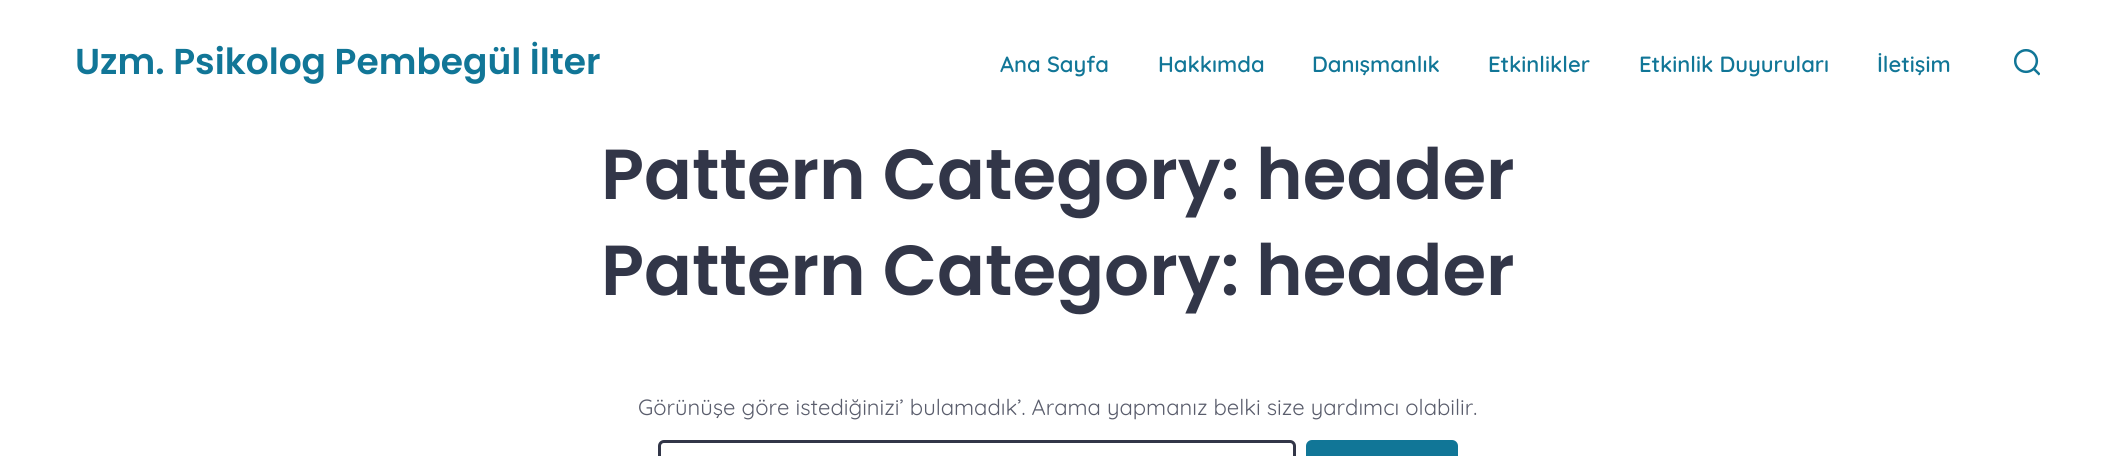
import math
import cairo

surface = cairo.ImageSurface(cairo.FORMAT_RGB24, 2115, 456)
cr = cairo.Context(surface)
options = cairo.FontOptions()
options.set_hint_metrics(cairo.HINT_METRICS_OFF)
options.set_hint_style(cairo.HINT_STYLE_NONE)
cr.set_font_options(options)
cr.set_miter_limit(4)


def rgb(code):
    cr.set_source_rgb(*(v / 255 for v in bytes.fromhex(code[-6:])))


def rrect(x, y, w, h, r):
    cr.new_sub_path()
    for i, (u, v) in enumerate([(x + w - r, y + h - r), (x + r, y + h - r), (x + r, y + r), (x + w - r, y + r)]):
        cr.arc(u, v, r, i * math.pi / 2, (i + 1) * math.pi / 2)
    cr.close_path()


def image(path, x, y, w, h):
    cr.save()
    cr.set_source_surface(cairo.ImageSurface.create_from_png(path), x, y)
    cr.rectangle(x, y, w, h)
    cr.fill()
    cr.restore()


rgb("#ffffff")
cr.paint()
image("img/1.png", 2014, 49, 26, 27)
rrect(659.5, 441.5, 635, 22, 4.5)
rgb("#323648")
cr.set_line_width(3)
cr.stroke()
rgb("#117697")
rrect(1306, 440, 152, 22, 6)
cr.fill()
cr.select_font_face("Poppins SemiBold")
cr.set_font_size(36)
cr.move_to(75, 74)
cr.show_text("Uzm. Psikolog Pembegül İlter")
cr.select_font_face("Quicksand SemiBold")
cr.set_font_size(22)
for x, y, s in [
    (1000, 72, "Ana Sayfa"),
    (1158, 72, "Hakkımda"),
    (1312, 72, "Danışmanlık"),
    (1488, 72, "Etkinlikler"),
    (1639, 72, "Etkinlik Duyuruları"),
    (1877, 72, "İletişim"),
]:
    cr.move_to(x, y)
    cr.show_text(s)
cr.select_font_face("Poppins SemiBold")
cr.set_font_size(70.75)
rgb("#323648")
cr.move_to(601, 199)
cr.show_text("Pattern Category: header")
cr.move_to(601, 295)
cr.show_text("Pattern Category: header")
cr.select_font_face("Quicksand")
cr.set_font_size(22)
rgb("#5a5d6c")
cr.move_to(638, 415)
cr.show_text("Görünüşe göre istediğinizi’ bulamadık’. Arama yapmanız belki size yardımcı olabilir.")
surface.write_to_png("page.png")
